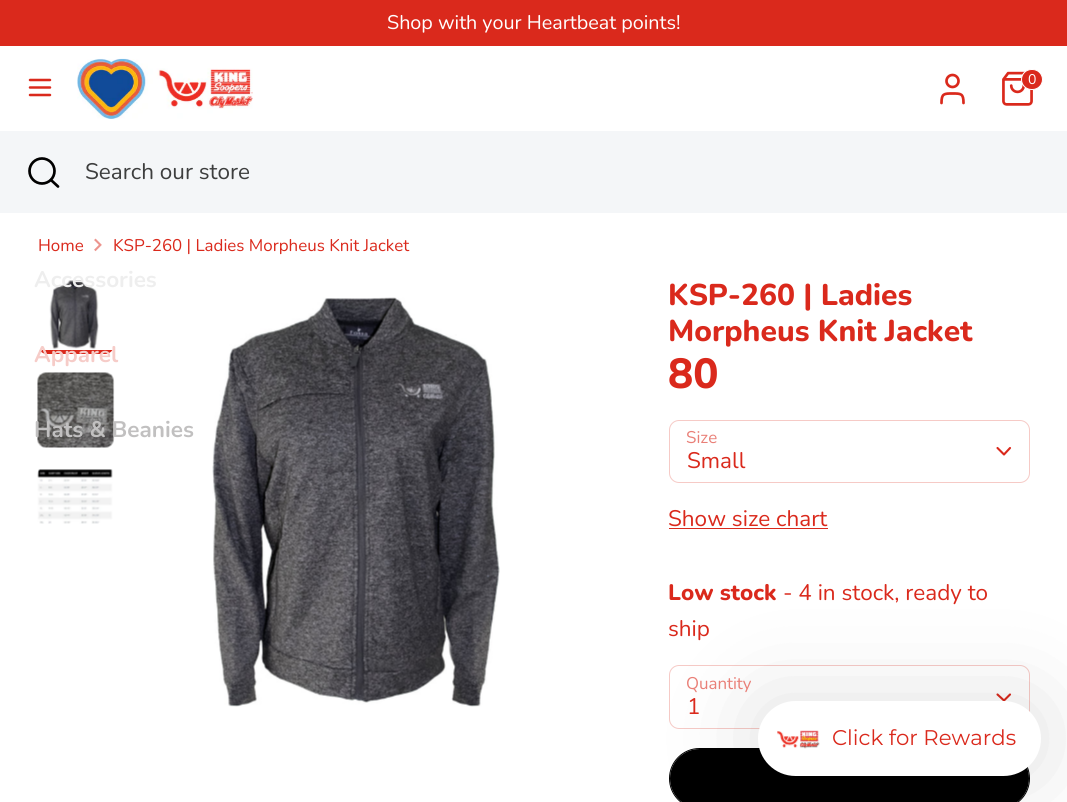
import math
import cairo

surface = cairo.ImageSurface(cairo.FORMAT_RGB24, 1067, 802)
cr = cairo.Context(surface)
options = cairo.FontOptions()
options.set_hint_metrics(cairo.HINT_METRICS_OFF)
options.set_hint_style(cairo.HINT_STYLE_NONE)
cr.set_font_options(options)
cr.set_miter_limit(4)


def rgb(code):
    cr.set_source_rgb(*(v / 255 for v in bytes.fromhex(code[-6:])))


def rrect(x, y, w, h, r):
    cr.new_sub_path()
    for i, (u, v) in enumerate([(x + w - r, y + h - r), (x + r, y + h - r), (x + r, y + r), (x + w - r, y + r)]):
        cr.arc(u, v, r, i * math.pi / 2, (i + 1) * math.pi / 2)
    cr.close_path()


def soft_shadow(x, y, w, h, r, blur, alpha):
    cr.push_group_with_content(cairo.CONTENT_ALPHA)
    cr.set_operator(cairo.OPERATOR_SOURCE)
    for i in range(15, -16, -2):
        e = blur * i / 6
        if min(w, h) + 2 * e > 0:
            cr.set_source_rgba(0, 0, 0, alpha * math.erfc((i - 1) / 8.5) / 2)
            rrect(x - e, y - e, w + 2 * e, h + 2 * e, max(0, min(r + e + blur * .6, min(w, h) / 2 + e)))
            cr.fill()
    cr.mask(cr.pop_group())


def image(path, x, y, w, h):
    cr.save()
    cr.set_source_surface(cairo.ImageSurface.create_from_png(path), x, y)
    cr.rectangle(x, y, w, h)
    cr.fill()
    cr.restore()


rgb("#ffffff")
cr.paint()
rgb("#da291c")
cr.rectangle(0, 0, 1067, 46)
cr.fill()
cr.new_path()
cr.move_to(30, 87.5)
cr.line_to(50, 87.5)
cr.move_to(30, 80)
cr.line_to(50, 80)
cr.move_to(30, 95)
cr.line_to(50, 95)
cr.set_line_width(2.5)
cr.set_line_cap(cairo.LINE_CAP_ROUND)
cr.set_line_join(cairo.LINE_JOIN_ROUND)
cr.stroke()
image("img/1.png", 77, 58, 176, 61)
cr.new_path()
cr.move_to(963.5, 103)
cr.curve_to(963.5, 93.5, 961, 93.5, 952.5, 93.5)
cr.curve_to(944, 93.5, 941.5, 93.5, 941.5, 103)
cr.set_line_width(2.7)
cr.stroke()
cr.arc(952.5, 81, 6, 0, 2 * math.pi)
cr.set_line_cap(cairo.LINE_CAP_BUTT)
cr.set_line_join(cairo.LINE_JOIN_MITER)
cr.stroke()
image("img/2.png", 1002, 71, 31, 35)
rrect(1021.5, 69.5, 21, 20, 10)
cr.fill_preserve()
rgb("#ffffff")
cr.set_line_width(1)
cr.stroke()
rgb("#f4f6f8")
cr.rectangle(0, 131, 1067, 82)
cr.fill()
cr.arc(42, 171, 12.5, 0, 2 * math.pi)
rgb("#000000")
cr.set_line_width(2.7)
cr.stroke()
cr.new_path()
cr.move_to(58, 186.5)
cr.line_to(51, 180)
cr.set_line_cap(cairo.LINE_CAP_ROUND)
cr.set_line_join(cairo.LINE_JOIN_ROUND)
cr.stroke()
image("img/3.png", 94, 238, 8, 14)
image("img/4.png", 49, 280, 50, 70)
cr.save()
rrect(38, 278, 76, 76, 9)
cr.clip()
rgb("#da291c")
cr.rectangle(38, 350, 76, 4)
cr.fill()
cr.restore()
image("img/5.png", 37, 372, 78, 76)
image("img/6.png", 37, 469, 76, 55)
image("img/7.png", 212, 297, 288, 410)
rrect(669.5, 420.5, 360, 62, 9.5)
rgb("#f6cac6")
cr.set_line_width(1)
cr.set_line_cap(cairo.LINE_CAP_BUTT)
cr.set_line_join(cairo.LINE_JOIN_MITER)
cr.stroke()
cr.new_path()
cr.move_to(997.5, 448)
cr.line_to(1004, 454.5)
cr.line_to(1010, 448)
rgb("#da291c")
cr.set_line_width(2.1)
cr.set_line_cap(cairo.LINE_CAP_ROUND)
cr.set_line_join(cairo.LINE_JOIN_ROUND)
cr.stroke()
cr.rectangle(669, 528, 159, 1)
cr.fill()
rrect(669.5, 665.5, 360, 63, 9.5)
rgb("#f6cac6")
cr.set_line_width(1)
cr.set_line_cap(cairo.LINE_CAP_BUTT)
cr.set_line_join(cairo.LINE_JOIN_MITER)
cr.stroke()
cr.new_path()
cr.move_to(997.5, 694.5)
cr.line_to(1004, 700.5)
cr.line_to(1010, 694.5)
rgb("#da291c")
cr.set_line_width(2.1)
cr.set_line_cap(cairo.LINE_CAP_ROUND)
cr.set_line_join(cairo.LINE_JOIN_ROUND)
cr.stroke()
rrect(669.5, 748.5, 360, 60, 30)
rgb("#000000")
cr.set_line_width(1)
cr.set_line_cap(cairo.LINE_CAP_BUTT)
cr.set_line_join(cairo.LINE_JOIN_MITER)
cr.stroke()
rrect(670, 749, 359, 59, 29.5)
cr.fill()
rgb("#000000")
soft_shadow(758, 701, 283, 75, 37.5, 50, 0.12)
rgb("#ffffff")
rrect(758, 701, 283, 75, 37.5)
cr.fill()
image("img/8.png", 777, 730, 43, 19)
cr.select_font_face("Nunito")
cr.set_font_size(19.75)
cr.move_to(387, 29)
cr.show_text("Shop with your Heartbeat points!")
cr.set_font_size(14)
cr.move_to(1028, 84)
cr.show_text("0")
cr.set_font_size(22.5)
rgb("#3d3e3e")
cr.move_to(85, 179)
cr.show_text("Search our store")
cr.select_font_face("Nunito", cairo.FONT_SLANT_NORMAL, cairo.FONT_WEIGHT_BOLD)
rgb("#eeeeee")
cr.move_to(34, 287)
cr.show_text("Accessories")
rgb("#f6ccc8")
cr.move_to(34, 362)
cr.show_text("Apparel")
rgb("#c1c0c0")
cr.move_to(34, 437)
cr.show_text("Hats & Beanies")
cr.select_font_face("Nunito")
cr.set_font_size(16.9)
rgb("#da291c")
cr.move_to(38, 251)
cr.show_text("Home")
cr.move_to(113, 251)
cr.show_text("KSP-260 | Ladies Morpheus Knit Jacket")
cr.select_font_face("Nunito ExtraBold")
cr.set_font_size(30)
cr.move_to(668, 305)
cr.show_text("KSP-260 | Ladies")
cr.move_to(668, 341)
cr.show_text("Morpheus Knit Jacket")
cr.set_font_size(42)
cr.move_to(668, 388)
cr.show_text("80")
cr.select_font_face("Nunito")
cr.set_font_size(16.9)
rgb("#e97f77")
cr.move_to(686, 443)
cr.show_text("Size")
cr.set_font_size(22.5)
rgb("#da291c")
cr.move_to(687, 468)
cr.show_text("Small")
cr.move_to(668, 526)
cr.show_text("Show size chart")
cr.select_font_face("Nunito ExtraBold")
cr.move_to(668, 600)
cr.show_text("Low stock")
cr.select_font_face("Nunito")
cr.move_to(783, 600)
cr.show_text("- 4 in stock, ready to")
cr.move_to(668, 636)
cr.show_text("ship")
cr.set_font_size(16.9)
rgb("#e97f77")
cr.move_to(686, 689)
cr.show_text("Quantity")
cr.set_font_size(22.5)
rgb("#da291c")
cr.move_to(687, 714)
cr.show_text("1")
cr.select_font_face("Montserrat")
cr.set_font_size(21.25)
cr.move_to(832, 745)
cr.show_text("Click for Rewards")
surface.write_to_png("page.png")
